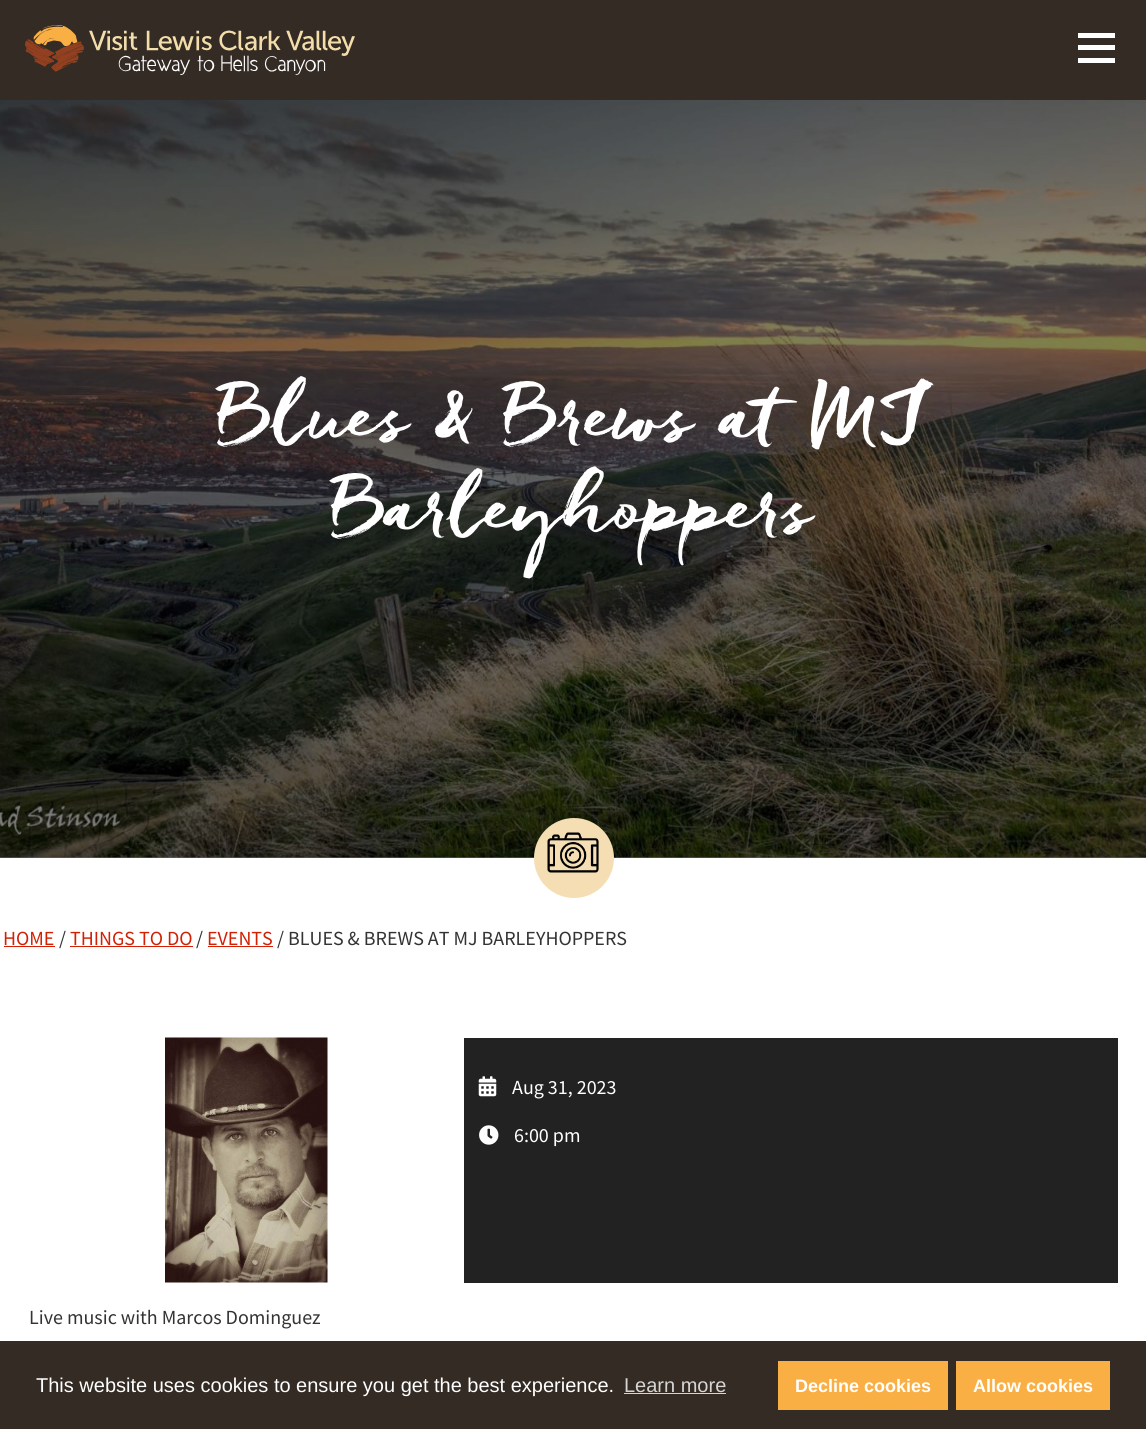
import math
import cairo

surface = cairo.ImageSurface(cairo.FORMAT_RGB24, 1146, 1429)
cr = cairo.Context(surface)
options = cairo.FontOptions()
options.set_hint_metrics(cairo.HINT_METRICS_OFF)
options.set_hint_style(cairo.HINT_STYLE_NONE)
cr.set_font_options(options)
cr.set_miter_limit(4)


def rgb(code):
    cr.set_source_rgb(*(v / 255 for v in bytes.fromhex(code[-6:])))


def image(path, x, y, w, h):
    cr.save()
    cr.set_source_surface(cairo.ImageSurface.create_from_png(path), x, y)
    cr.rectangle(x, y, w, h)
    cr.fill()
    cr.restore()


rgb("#ffffff")
cr.paint()
rgb("#342b24")
cr.rectangle(0, 0, 1146, 100)
cr.fill()
image("img/1.png", 25, 25, 330, 50)
for x, y, w, h, color in [
    (1078, 33, 37, 5, "#ffffff"),
    (1078, 45, 37, 5, "#ffffff"),
    (1078, 58, 37, 5, "#ffffff"),
    (0, 857, 1146, 1, "#796f56"),
]:
    rgb(color)
    cr.rectangle(x, y, w, h)
    cr.fill()
image("img/2.png", 0, 100, 1146, 758)
rgb("#f5deb3")
cr.arc(574, 858, 40, 0, 2 * math.pi)
cr.fill()
image("img/3.png", 547, 832, 52, 41)
for x, y, w, h, color in [
    (4, 946, 51, 1, "#d12004"),
    (70, 946, 123, 1, "#d12004"),
    (208, 946, 65, 1, "#d12004"),
]:
    rgb(color)
    cr.rectangle(x, y, w, h)
    cr.fill()
image("img/4.png", 165, 1037, 163, 246)
rgb("#222222")
cr.rectangle(464, 1038, 654, 245)
cr.fill()
image("img/5.png", 478, 1076, 19, 21)
image("img/6.png", 479, 1125, 20, 20)
for x, y, w, h, color in [
    (0, 1341, 1146, 88, "#342b24"),
    (624, 1393, 102, 1, "#d6d5d3"),
    (778, 1361, 170, 49, "#faaf44"),
    (956, 1361, 154, 49, "#faaf44"),
]:
    rgb(color)
    cr.rectangle(x, y, w, h)
    cr.fill()
cr.select_font_face("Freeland")
cr.set_font_size(80)
rgb("#ffffff")
cr.move_to(218, 436)
cr.show_text("Blues & Brews at MJ")
cr.move_to(332, 528)
cr.show_text("Barleyhoppers")
cr.select_font_face("Source Sans Pro")
cr.set_font_size(20)
rgb("#d12004")
cr.move_to(3, 945)
cr.show_text("HOME")
rgb("#333333")
cr.move_to(59, 945)
cr.show_text("/")
rgb("#d12004")
cr.move_to(70, 945)
cr.show_text("THINGS TO DO")
rgb("#333333")
cr.move_to(196, 945)
cr.show_text("/")
rgb("#d12004")
cr.move_to(207, 945)
cr.show_text("EVENTS")
rgb("#333333")
cr.move_to(277, 945)
cr.show_text("/ BLUES & BREWS AT MJ BARLEYHOPPERS")
rgb("#ffffff")
cr.move_to(512, 1094)
cr.show_text("Aug 31, 2023")
cr.move_to(514, 1142)
cr.show_text("6:00 pm")
rgb("#333333")
cr.move_to(29, 1324)
cr.show_text("Live music with Marcos Dominguez")
cr.select_font_face("Liberation Sans")
rgb("#ffffff")
cr.move_to(36, 1392)
cr.show_text("This website uses cookies to ensure you get the best experience.")
rgb("#d6d5d3")
cr.move_to(624, 1392)
cr.show_text("Learn more")
cr.select_font_face("Liberation Sans", cairo.FONT_SLANT_NORMAL, cairo.FONT_WEIGHT_BOLD)
cr.set_font_size(18)
rgb("#ffffff")
cr.move_to(795, 1392)
cr.show_text("Decline cookies")
cr.move_to(973, 1392)
cr.show_text("Allow cookies")
surface.write_to_png("page.png")
